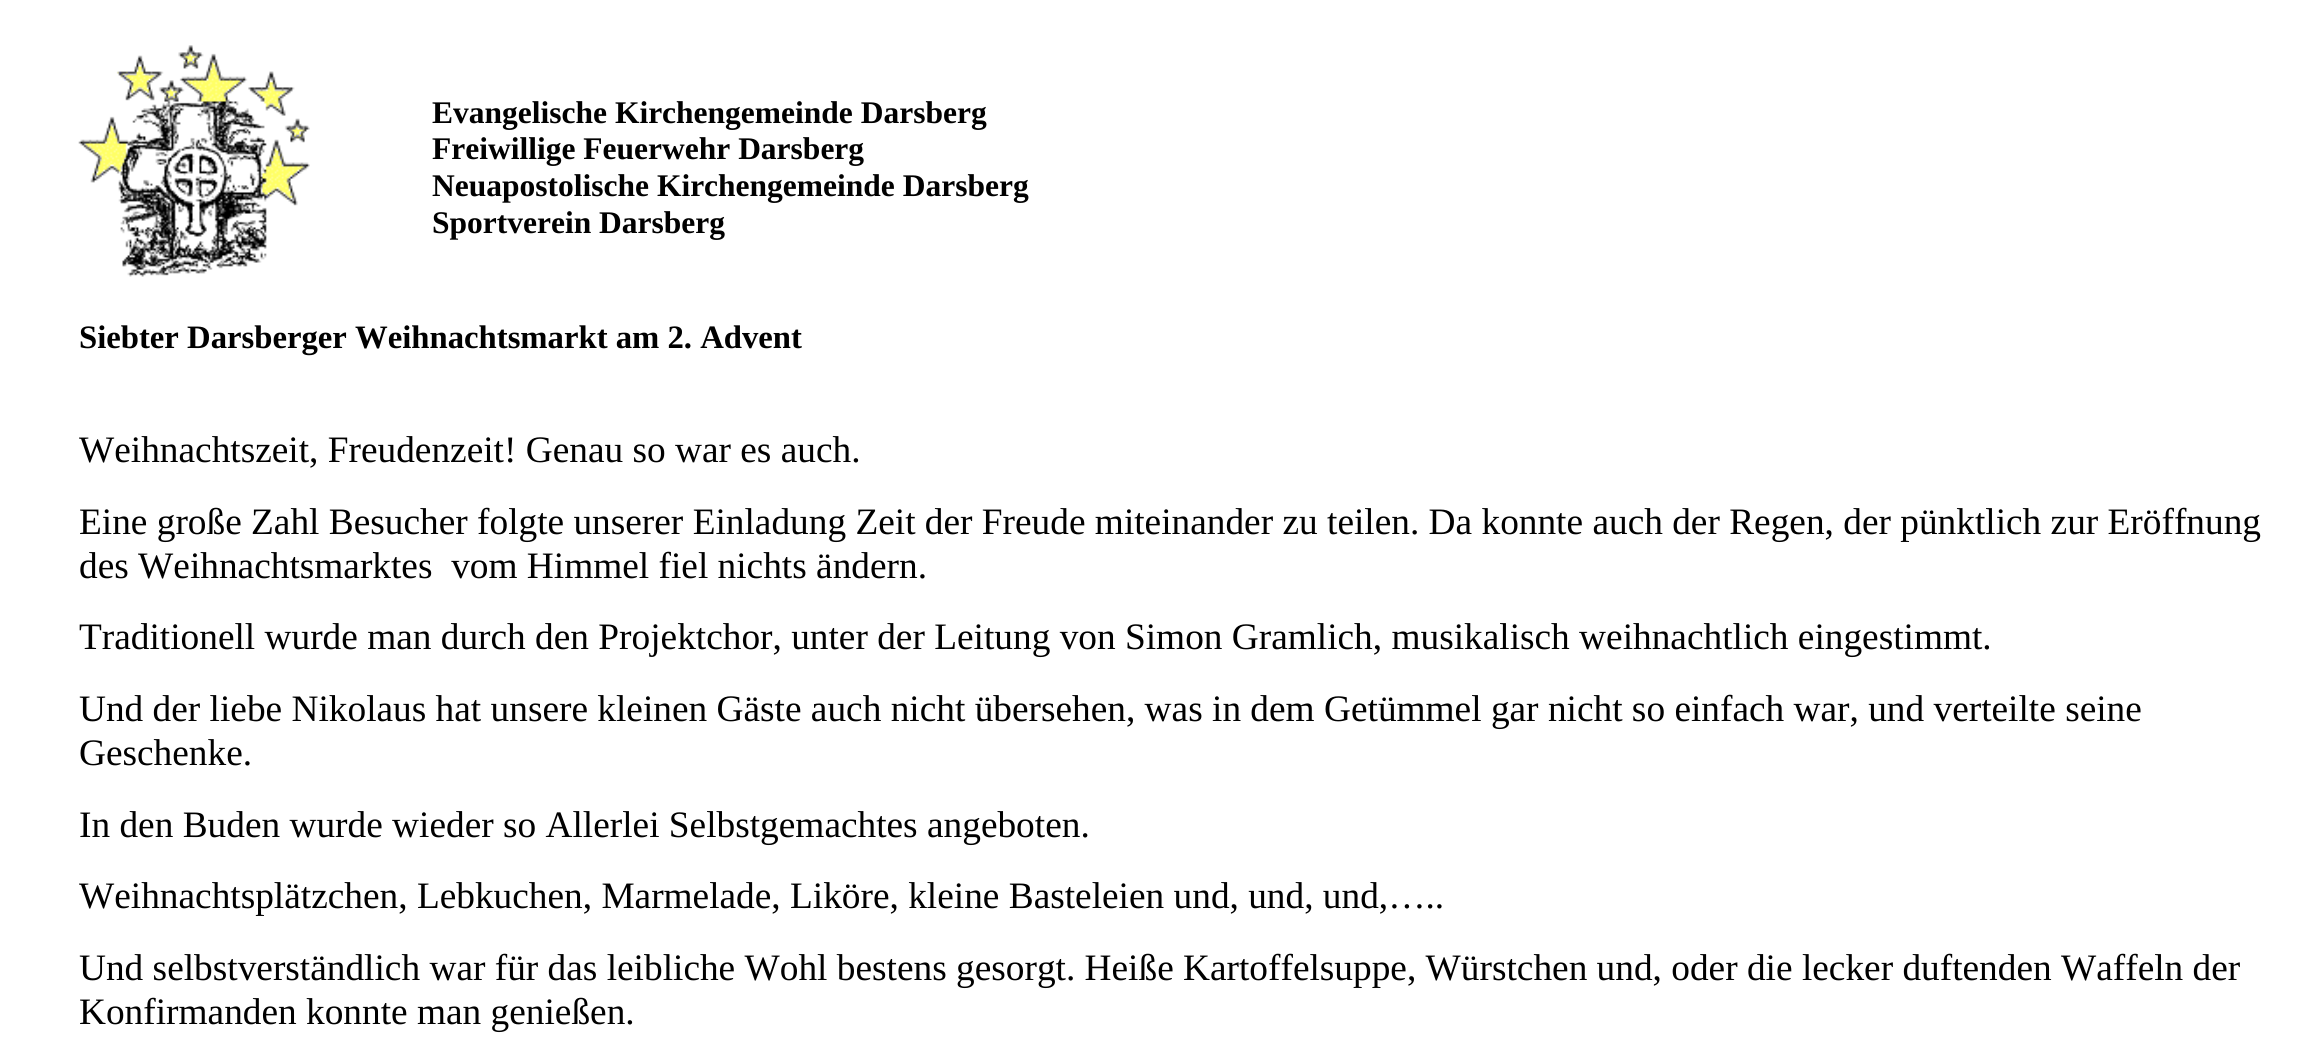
import math
import cairo

surface = cairo.ImageSurface(cairo.FORMAT_RGB24, 2299, 1057)
cr = cairo.Context(surface)
options = cairo.FontOptions()
options.set_hint_metrics(cairo.HINT_METRICS_OFF)
options.set_hint_style(cairo.HINT_STYLE_NONE)
cr.set_font_options(options)
cr.set_miter_limit(4)


def rgb(code):
    cr.set_source_rgb(*(v / 255 for v in bytes.fromhex(code[-6:])))


def image(path, x, y, w, h):
    cr.save()
    cr.set_source_surface(cairo.ImageSurface.create_from_png(path), x, y)
    cr.rectangle(x, y, w, h)
    cr.fill()
    cr.restore()


rgb("#ffffff")
cr.paint()
image("img/1.png", 78, 45, 232, 232)
cr.select_font_face("Liberation Serif", cairo.FONT_SLANT_NORMAL, cairo.FONT_WEIGHT_BOLD)
cr.set_font_size(31.5)
rgb("#000000")
for x, y, s in [
    (432, 123, "Evangelische Kirchengemeinde Darsberg"),
    (432, 159, "Freiwillige Feuerwehr Darsberg"),
    (432, 196, "Neuapostolische Kirchengemeinde Darsberg"),
    (432, 233, "Sportverein Darsberg"),
]:
    cr.move_to(x, y)
    cr.show_text(s)
cr.set_font_size(32.7)
cr.move_to(79, 348)
cr.show_text("Siebter Darsberger Weihnachtsmarkt am 2. Advent")
cr.select_font_face("Liberation Serif")
cr.set_font_size(37.33)
for x, y, s in [
    (79, 462, "Weihnachtszeit, Freudenzeit! Genau so war es auch."),
    (79, 534, "Eine große Zahl Besucher folgte unserer Einladung Zeit der Freude miteinander zu teilen. Da konnte auch der Regen, der pünktlich zur Eröffnung"),
    (79, 578, "des Weihnachtsmarktes  vom Himmel fiel nichts ändern."),
    (79, 649, "Traditionell wurde man durch den Projektchor, unter der Leitung von Simon Gramlich, musikalisch weihnachtlich eingestimmt."),
    (79, 721, "Und der liebe Nikolaus hat unsere kleinen Gäste auch nicht übersehen, was in dem Getümmel gar nicht so einfach war, und verteilte seine"),
    (79, 765, "Geschenke."),
    (79, 837, "In den Buden wurde wieder so Allerlei Selbstgemachtes angeboten."),
    (79, 908, "Weihnachtsplätzchen, Lebkuchen, Marmelade, Liköre, kleine Basteleien und, und, und,….."),
    (79, 980, "Und selbstverständlich war für das leibliche Wohl bestens gesorgt. Heiße Kartoffelsuppe, Würstchen und, oder die lecker duftenden Waffeln der"),
    (79, 1024, "Konfirmanden konnte man genießen."),
]:
    cr.move_to(x, y)
    cr.show_text(s)
surface.write_to_png("page.png")
